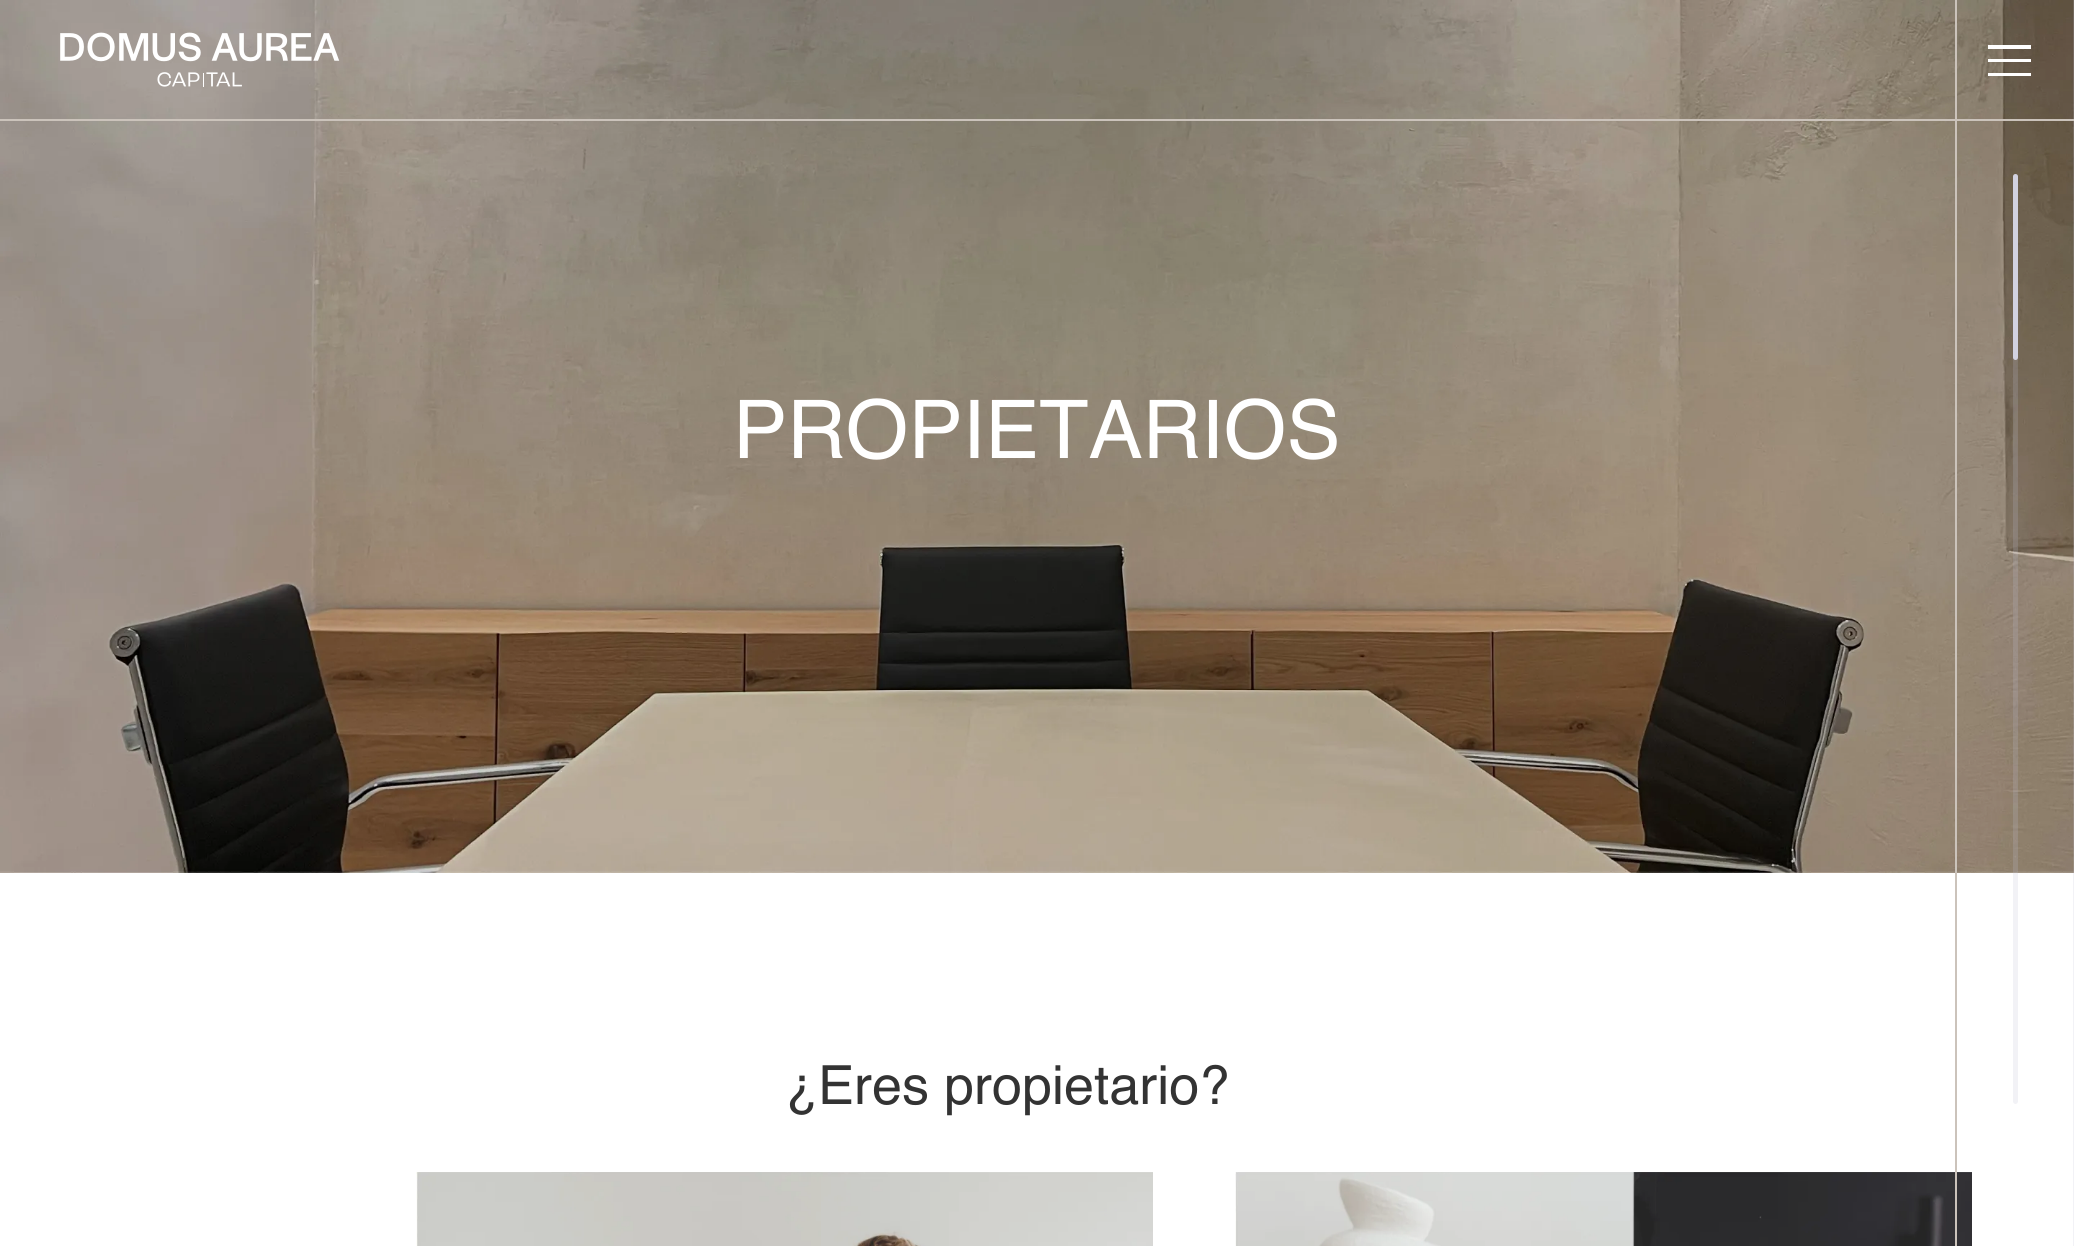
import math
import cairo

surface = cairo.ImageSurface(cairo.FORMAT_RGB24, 2074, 1246)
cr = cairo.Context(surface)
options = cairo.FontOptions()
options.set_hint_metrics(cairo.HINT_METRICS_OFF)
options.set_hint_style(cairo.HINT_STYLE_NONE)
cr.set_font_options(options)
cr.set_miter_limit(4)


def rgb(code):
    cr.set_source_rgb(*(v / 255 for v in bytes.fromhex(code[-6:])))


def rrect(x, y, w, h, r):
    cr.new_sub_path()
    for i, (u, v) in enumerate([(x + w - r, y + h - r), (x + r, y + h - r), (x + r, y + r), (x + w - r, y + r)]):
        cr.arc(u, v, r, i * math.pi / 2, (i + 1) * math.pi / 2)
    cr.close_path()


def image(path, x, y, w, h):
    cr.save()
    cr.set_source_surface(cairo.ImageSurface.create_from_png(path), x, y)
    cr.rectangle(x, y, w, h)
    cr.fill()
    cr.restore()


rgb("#ffffff")
cr.paint()
image("img/2.png", 0, 0, 2074, 873)
cr.set_source_rgba(0.753, 0.753, 0.827, 0.2)
cr.rectangle(2073, 0, 1, 1246)
cr.fill()
image("img/4.png", 1235, 1172, 737, 74)
rgb("#cbc3bb")
cr.rectangle(1955, 0, 2, 1246)
cr.fill()
cr.rectangle(0, 119, 2074, 2)
cr.fill()
image("img/1.png", 60, 32, 280, 55)
rgb("#ffffff")
cr.new_path()
cr.move_to(1988, 45)
cr.line_to(1988, 49)
cr.line_to(2031, 49)
cr.line_to(2031, 45)
cr.close_path()
cr.move_to(1988, 59)
cr.line_to(1988, 62)
cr.line_to(2031, 62)
cr.line_to(2031, 59)
cr.close_path()
cr.move_to(1988, 73)
cr.line_to(1988, 76)
cr.line_to(2031, 76)
cr.line_to(2031, 73)
cr.close_path()
cr.fill()
image("img/3.png", 416, 1172, 737, 74)
cr.set_source_rgba(0.753, 0.753, 0.827, 0.2)
rrect(2013, 174, 5, 930, 2.5)
cr.fill()
rgb("#d2d2e0")
rrect(2013, 174, 5, 186, 2.5)
cr.fill()
cr.select_font_face("Helvetica")
cr.set_font_size(81)
rgb("#ffffff")
cr.move_to(733, 458)
cr.show_text("PROPIETARIOS")
cr.set_font_size(54)
rgb("#333333")
cr.move_to(785, 1104)
cr.show_text("¿Eres propietario?")
surface.write_to_png("page.png")
